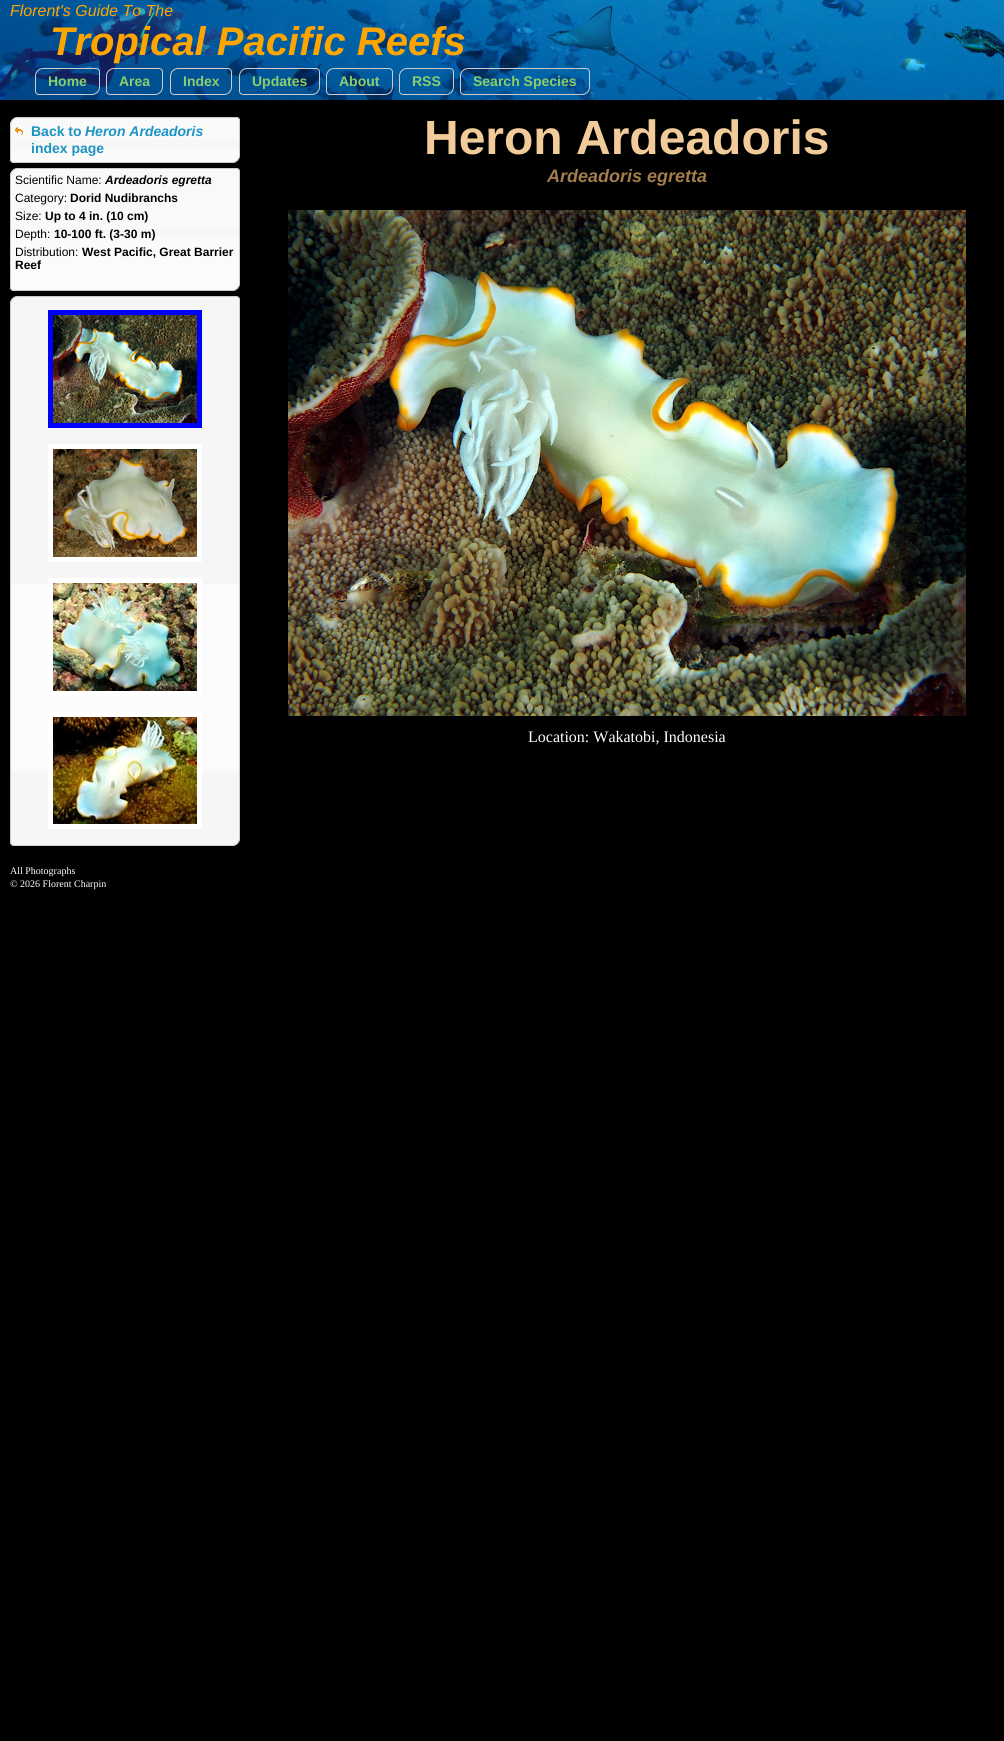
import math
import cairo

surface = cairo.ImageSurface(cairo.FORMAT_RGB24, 1004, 1741)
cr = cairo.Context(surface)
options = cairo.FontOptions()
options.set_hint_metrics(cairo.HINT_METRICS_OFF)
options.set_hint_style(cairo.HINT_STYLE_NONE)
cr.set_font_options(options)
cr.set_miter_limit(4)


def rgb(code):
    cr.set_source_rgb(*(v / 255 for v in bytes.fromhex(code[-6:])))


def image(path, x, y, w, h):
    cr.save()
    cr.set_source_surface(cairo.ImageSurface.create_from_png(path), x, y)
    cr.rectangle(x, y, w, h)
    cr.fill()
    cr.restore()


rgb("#000000")
cr.paint()
image("img/1.png", 0, 0, 1004, 100)
cr.new_path()
cr.move_to(43, 68.5)
cr.line_to(96, 68.5)
cr.curve_to(98, 68.5, 99.5, 70, 99.5, 72)
cr.line_to(99.5, 87)
cr.curve_to(99.5, 91, 96, 94.5, 92, 94.5)
cr.line_to(39, 94.5)
cr.curve_to(37, 94.5, 35.5, 93, 35.5, 91)
cr.line_to(35.5, 76)
cr.curve_to(35.5, 72, 39, 68.5, 43, 68.5)
cr.close_path()
rgb("#cccccc")
cr.set_line_width(1)
cr.stroke()
cr.new_path()
cr.move_to(114, 68.5)
cr.line_to(159, 68.5)
cr.curve_to(161, 68.5, 162.5, 70, 162.5, 72)
cr.line_to(162.5, 87)
cr.curve_to(162.5, 91, 159, 94.5, 155, 94.5)
cr.line_to(110, 94.5)
cr.curve_to(108, 94.5, 106.5, 93, 106.5, 91)
cr.line_to(106.5, 76)
cr.curve_to(106.5, 72, 110, 68.5, 114, 68.5)
cr.close_path()
cr.stroke()
cr.new_path()
cr.move_to(178, 68.5)
cr.line_to(228, 68.5)
cr.curve_to(230, 68.5, 231.5, 70, 231.5, 72)
cr.line_to(231.5, 87)
cr.curve_to(231.5, 91, 228, 94.5, 224, 94.5)
cr.line_to(174, 94.5)
cr.curve_to(172, 94.5, 170.5, 93, 170.5, 91)
cr.line_to(170.5, 76)
cr.curve_to(170.5, 72, 174, 68.5, 178, 68.5)
cr.close_path()
cr.stroke()
cr.new_path()
cr.move_to(247, 68.5)
cr.line_to(316, 68.5)
cr.curve_to(318, 68.5, 319.5, 70, 319.5, 72)
cr.line_to(319.5, 87)
cr.curve_to(319.5, 91, 316, 94.5, 312, 94.5)
cr.line_to(243, 94.5)
cr.curve_to(241, 94.5, 239.5, 93, 239.5, 91)
cr.line_to(239.5, 76)
cr.curve_to(239.5, 72, 243, 68.5, 247, 68.5)
cr.close_path()
cr.stroke()
cr.new_path()
cr.move_to(334, 68.5)
cr.line_to(389, 68.5)
cr.curve_to(391, 68.5, 392.5, 70, 392.5, 72)
cr.line_to(392.5, 87)
cr.curve_to(392.5, 91, 389, 94.5, 385, 94.5)
cr.line_to(330, 94.5)
cr.curve_to(328, 94.5, 326.5, 93, 326.5, 91)
cr.line_to(326.5, 76)
cr.curve_to(326.5, 72, 330, 68.5, 334, 68.5)
cr.close_path()
cr.stroke()
cr.new_path()
cr.move_to(407, 68.5)
cr.line_to(450, 68.5)
cr.curve_to(452, 68.5, 453.5, 70, 453.5, 72)
cr.line_to(453.5, 87)
cr.curve_to(453.5, 91, 450, 94.5, 446, 94.5)
cr.line_to(403, 94.5)
cr.curve_to(401, 94.5, 399.5, 93, 399.5, 91)
cr.line_to(399.5, 76)
cr.curve_to(399.5, 72, 403, 68.5, 407, 68.5)
cr.close_path()
cr.stroke()
cr.new_path()
cr.move_to(468, 68.5)
cr.line_to(586, 68.5)
cr.curve_to(588, 68.5, 589.5, 70, 589.5, 72)
cr.line_to(589.5, 87)
cr.curve_to(589.5, 91, 586, 94.5, 582, 94.5)
cr.line_to(464, 94.5)
cr.curve_to(462, 94.5, 460.5, 93, 460.5, 91)
cr.line_to(460.5, 76)
cr.curve_to(460.5, 72, 464, 68.5, 468, 68.5)
cr.close_path()
cr.stroke()
image("img/2.png", 10, 117, 230, 46)
cr.new_path()
cr.move_to(18, 117.5)
cr.line_to(236, 117.5)
cr.curve_to(238, 117.5, 239.5, 119, 239.5, 121)
cr.line_to(239.5, 155)
cr.curve_to(239.5, 159, 236, 162.5, 232, 162.5)
cr.line_to(14, 162.5)
cr.curve_to(12, 162.5, 10.5, 161, 10.5, 159)
cr.line_to(10.5, 125)
cr.curve_to(10.5, 121, 14, 117.5, 18, 117.5)
cr.close_path()
cr.stroke()
image("img/3.png", 15, 127, 8, 8)
image("img/4.png", 10, 168, 230, 123)
cr.new_path()
cr.move_to(18, 168.5)
cr.line_to(236, 168.5)
cr.curve_to(238, 168.5, 239.5, 170, 239.5, 172)
cr.line_to(239.5, 283)
cr.curve_to(239.5, 287, 236, 290.5, 232, 290.5)
cr.line_to(14, 290.5)
cr.curve_to(12, 290.5, 10.5, 289, 10.5, 287)
cr.line_to(10.5, 176)
cr.curve_to(10.5, 172, 14, 168.5, 18, 168.5)
cr.close_path()
cr.stroke()
rgb("#f6f6f6")
cr.new_path()
cr.move_to(18, 296)
cr.line_to(236, 296)
cr.curve_to(238, 296, 240, 298, 240, 300)
cr.line_to(240, 838)
cr.curve_to(240, 842.5, 236.5, 846, 232, 846)
cr.line_to(14, 846)
cr.curve_to(12, 846, 10, 844, 10, 842)
cr.line_to(10, 304)
cr.curve_to(10, 299.5, 13.5, 296, 18, 296)
cr.close_path()
cr.fill()
rgb("#fbfbfb")
cr.rectangle(11, 584, 228, 187)
cr.fill()
cr.new_path()
cr.move_to(18, 296.5)
cr.line_to(236, 296.5)
cr.curve_to(238, 296.5, 239.5, 298, 239.5, 300)
cr.line_to(239.5, 838)
cr.curve_to(239.5, 842, 236, 845.5, 232, 845.5)
cr.line_to(14, 845.5)
cr.curve_to(12, 845.5, 10.5, 844, 10.5, 842)
cr.line_to(10.5, 304)
cr.curve_to(10.5, 300, 14, 296.5, 18, 296.5)
cr.close_path()
rgb("#cccccc")
cr.stroke()
cr.rectangle(50.5, 312.5, 149, 113)
rgb("#0000ff")
cr.set_line_width(5)
cr.stroke()
image("img/5.png", 53, 315, 144, 108)
cr.rectangle(50.5, 446.5, 149, 113)
rgb("#ffffff")
cr.stroke()
image("img/6.png", 53, 449, 144, 108)
cr.rectangle(50.5, 580.5, 149, 113)
cr.stroke()
image("img/7.png", 53, 583, 144, 108)
cr.rectangle(50.5, 714.5, 149, 112)
cr.stroke()
image("img/8.png", 53, 717, 144, 107)
image("img/9.png", 288, 210, 678, 506)
cr.select_font_face("Liberation Sans", cairo.FONT_SLANT_ITALIC)
cr.set_font_size(16)
rgb("#ffa500")
cr.move_to(10, 16)
cr.show_text("Florent's Guide To The")
cr.select_font_face("Liberation Sans", cairo.FONT_SLANT_ITALIC, cairo.FONT_WEIGHT_BOLD)
cr.set_font_size(40)
cr.move_to(50, 55)
cr.show_text("Tropical Pacific Reefs")
cr.select_font_face("Liberation Sans", cairo.FONT_SLANT_NORMAL, cairo.FONT_WEIGHT_BOLD)
cr.set_font_size(14)
rgb("#8bcd6b")
for x, y, s in [
    (48, 86, "Home"),
    (119, 86, "Area"),
    (183, 86, "Index"),
    (252, 86, "Updates"),
    (339, 86, "About"),
    (412, 86, "RSS"),
    (473, 86, "Search Species"),
]:
    cr.move_to(x, y)
    cr.show_text(s)
rgb("#1c94c4")
cr.move_to(31, 136)
cr.show_text("Back to")
cr.select_font_face("Liberation Sans", cairo.FONT_SLANT_ITALIC, cairo.FONT_WEIGHT_BOLD)
cr.move_to(85, 136)
cr.show_text("Heron Ardeadoris")
cr.select_font_face("Liberation Sans", cairo.FONT_SLANT_NORMAL, cairo.FONT_WEIGHT_BOLD)
cr.move_to(31, 153)
cr.show_text("index page")
cr.select_font_face("Liberation Sans")
cr.set_font_size(12)
rgb("#000000")
cr.move_to(15, 184)
cr.show_text("Scientific Name:")
cr.select_font_face("Liberation Sans", cairo.FONT_SLANT_ITALIC, cairo.FONT_WEIGHT_BOLD)
cr.move_to(105, 184)
cr.show_text("Ardeadoris egretta")
cr.select_font_face("Liberation Sans")
cr.move_to(15, 202)
cr.show_text("Category:")
cr.select_font_face("Liberation Sans", cairo.FONT_SLANT_NORMAL, cairo.FONT_WEIGHT_BOLD)
cr.move_to(70, 202)
cr.show_text("Dorid Nudibranchs")
cr.select_font_face("Liberation Sans")
cr.move_to(15, 220)
cr.show_text("Size:")
cr.select_font_face("Liberation Sans", cairo.FONT_SLANT_NORMAL, cairo.FONT_WEIGHT_BOLD)
cr.move_to(45, 220)
cr.show_text("Up to 4 in. (10 cm)")
cr.select_font_face("Liberation Sans")
cr.move_to(15, 238)
cr.show_text("Depth:")
cr.select_font_face("Liberation Sans", cairo.FONT_SLANT_NORMAL, cairo.FONT_WEIGHT_BOLD)
cr.move_to(54, 238)
cr.show_text("10-100 ft. (3-30 m)")
cr.select_font_face("Liberation Sans")
cr.move_to(15, 256)
cr.show_text("Distribution:")
cr.select_font_face("Liberation Sans", cairo.FONT_SLANT_NORMAL, cairo.FONT_WEIGHT_BOLD)
cr.move_to(82, 256)
cr.show_text("West Pacific, Great Barrier")
cr.move_to(15, 269)
cr.show_text("Reef")
cr.select_font_face("Liberation Serif")
cr.set_font_size(10)
rgb("#ffffff")
cr.move_to(10, 874)
cr.show_text("All Photographs")
cr.move_to(10, 887)
cr.show_text("© 2026 Florent Charpin")
cr.select_font_face("Liberation Sans", cairo.FONT_SLANT_NORMAL, cairo.FONT_WEIGHT_BOLD)
cr.set_font_size(48)
rgb("#f1cb99")
cr.move_to(424, 154)
cr.show_text("Heron Ardeadoris")
cr.select_font_face("Liberation Sans", cairo.FONT_SLANT_ITALIC, cairo.FONT_WEIGHT_BOLD)
cr.set_font_size(18)
rgb("#a37d4c")
cr.move_to(547, 182)
cr.show_text("Ardeadoris egretta")
cr.select_font_face("Liberation Serif")
cr.set_font_size(16)
rgb("#ffffff")
cr.move_to(528, 742)
cr.show_text("Location: Wakatobi, Indonesia")
surface.write_to_png("page.png")
